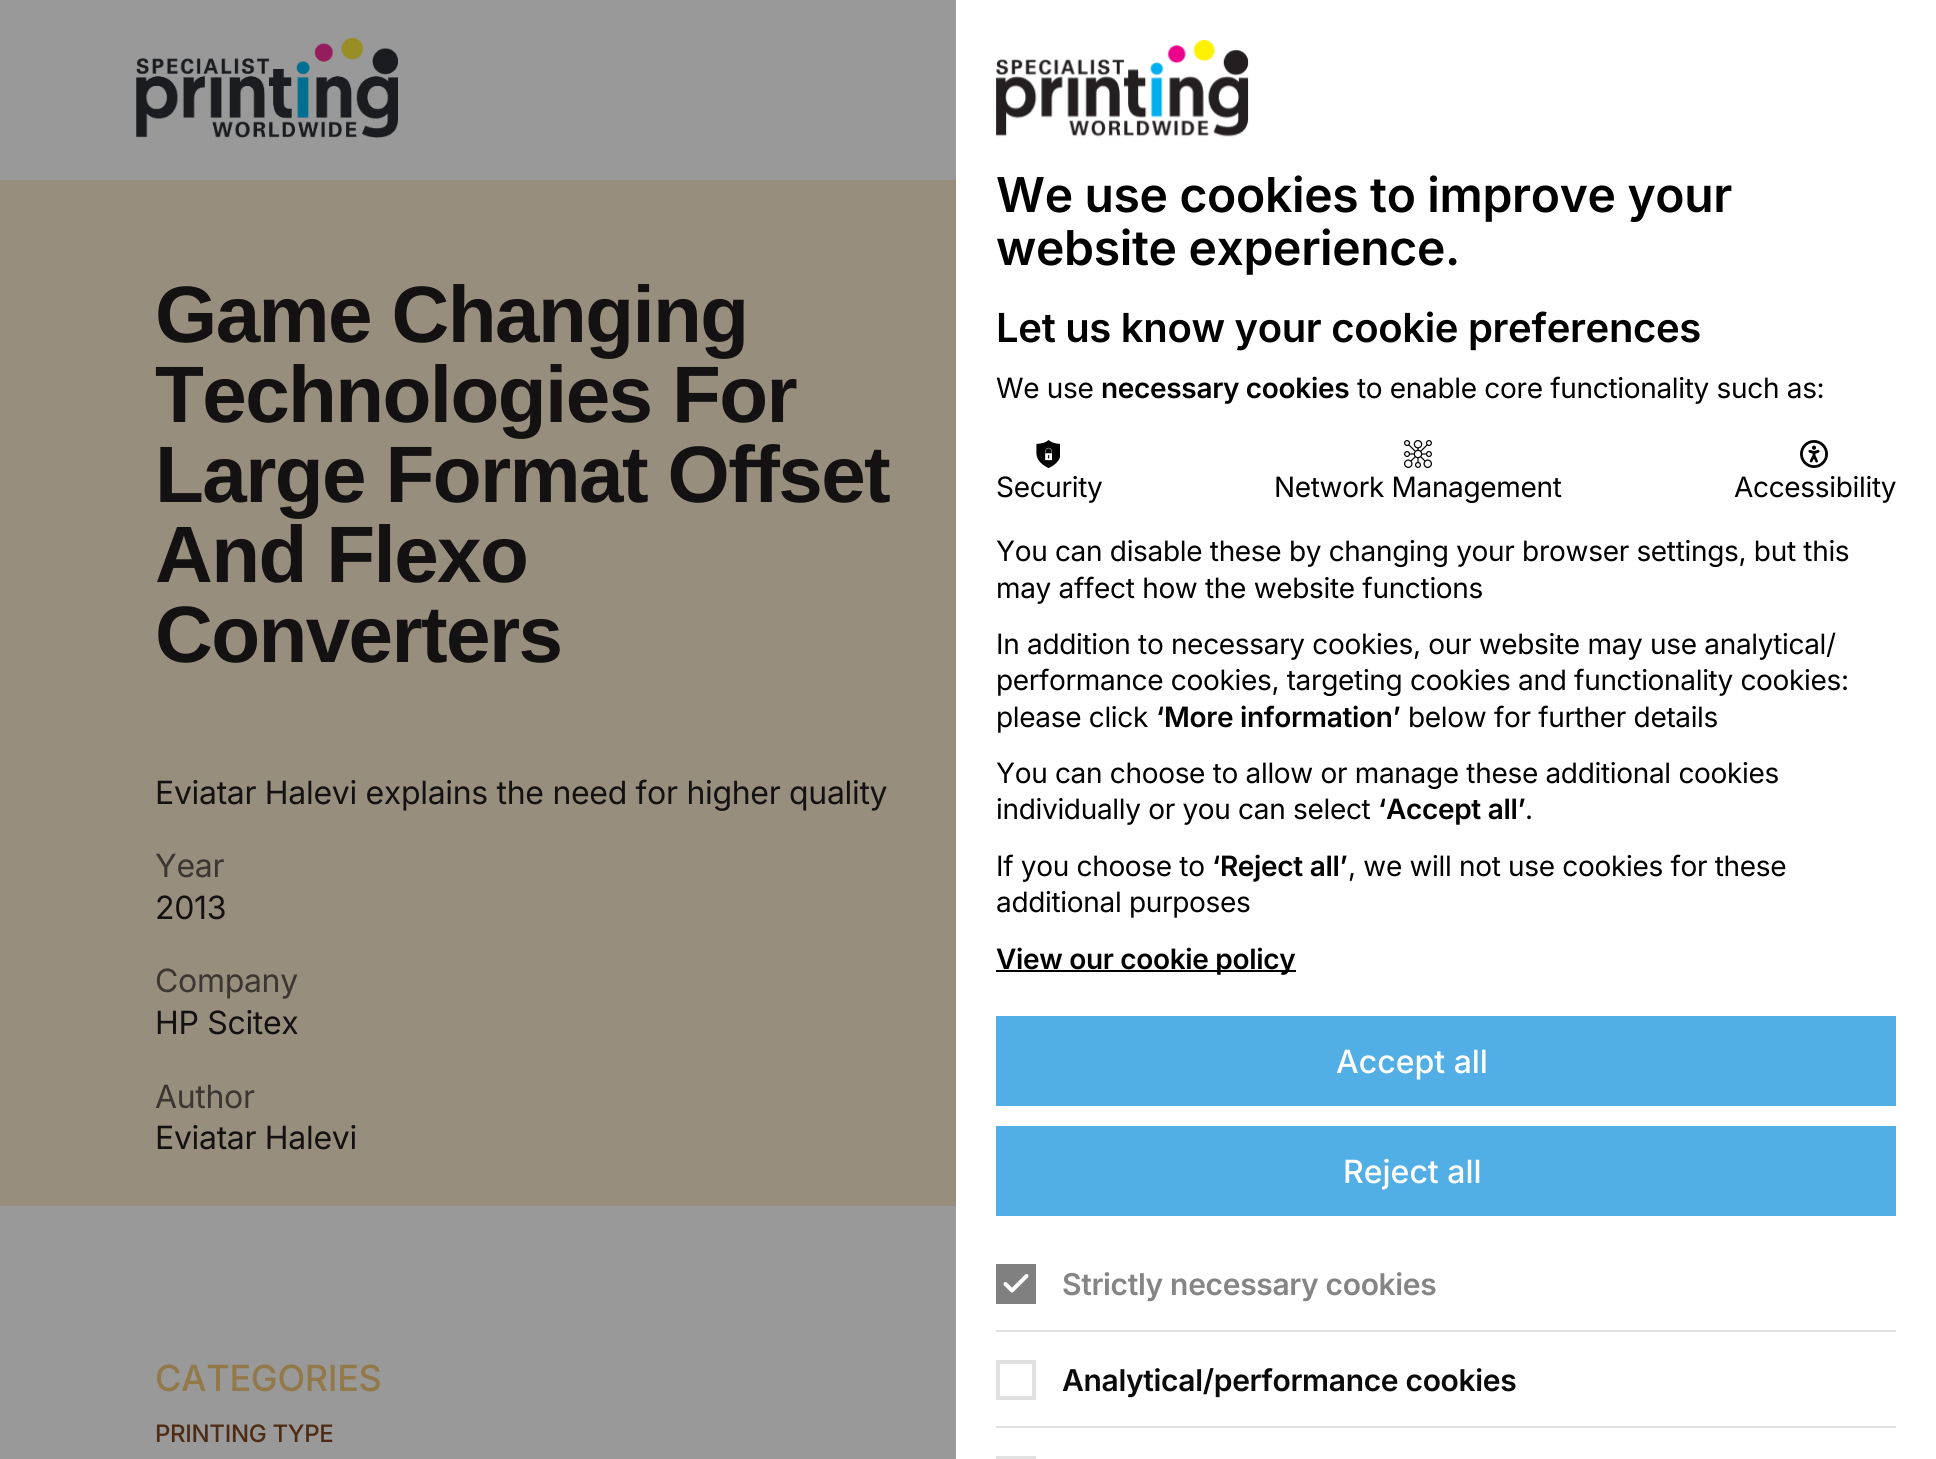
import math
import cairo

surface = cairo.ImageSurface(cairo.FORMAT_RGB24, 1936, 1459)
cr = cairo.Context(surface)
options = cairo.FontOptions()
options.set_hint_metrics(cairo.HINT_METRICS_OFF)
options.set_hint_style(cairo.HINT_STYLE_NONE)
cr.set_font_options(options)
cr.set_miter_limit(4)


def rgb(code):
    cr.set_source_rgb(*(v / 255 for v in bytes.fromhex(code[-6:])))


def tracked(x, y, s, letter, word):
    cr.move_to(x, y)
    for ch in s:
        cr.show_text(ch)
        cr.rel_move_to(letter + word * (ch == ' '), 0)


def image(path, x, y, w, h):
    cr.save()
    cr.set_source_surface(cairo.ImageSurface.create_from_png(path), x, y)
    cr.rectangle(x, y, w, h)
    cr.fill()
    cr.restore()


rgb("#999999")
cr.paint()
image("img/1.png", 136, 38, 262, 100)
rgb("#988e7d")
cr.rectangle(0, 180, 956, 1026)
cr.fill()
rgb("#ffffff")
cr.rectangle(956, 0, 980, 1459)
cr.fill()
image("img/2.png", 996, 40, 253, 97)
image("img/3.png", 1036, 440, 24, 28)
image("img/4.png", 1404, 440, 28, 28)
image("img/5.png", 1800, 440, 28, 28)
for x, y, w, h, color in [
    (996, 970, 300, 2, "#000000"),
    (996, 1016, 900, 90, "#52afe6"),
    (996, 1126, 900, 90, "#52afe6"),
    (996, 1330, 900, 2, "#e1e1e1"),
    (996, 1264, 40, 40, "#808080"),
]:
    rgb(color)
    cr.rectangle(x, y, w, h)
    cr.fill()
cr.new_path()
cr.move_to(1026.5, 1276)
cr.line_to(1012, 1290.5)
cr.line_to(1005.5, 1284)
rgb("#ffffff")
cr.set_line_width(4)
cr.set_line_cap(cairo.LINE_CAP_ROUND)
cr.set_line_join(cairo.LINE_JOIN_ROUND)
cr.stroke()
rgb("#e1e1e1")
cr.rectangle(996, 1426, 900, 2)
cr.fill()
cr.rectangle(998, 1362, 36, 36)
cr.set_line_cap(cairo.LINE_CAP_BUTT)
cr.set_line_join(cairo.LINE_JOIN_MITER)
cr.stroke()
cr.rectangle(998, 1458, 36, 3)
cr.stroke()
cr.select_font_face("Liberation Sans", cairo.FONT_SLANT_NORMAL, cairo.FONT_WEIGHT_BOLD)
cr.set_font_size(80)
rgb("#131111")
for x, y, s in [
    (155, 342, "Game Changing"),
    (155, 422, "Technologies For"),
    (155, 502, "Large Format Offset"),
    (155, 582, "And Flexo"),
    (155, 662, "Converters"),
]:
    tracked(x, y, s, -1.6, 0)
cr.select_font_face("Inter")
cr.set_font_size(32)
tracked(155, 804, "Eviatar Halevi explains the need for higher quality", -0.32, 0)
rgb("#3b3631")
tracked(155, 877, "Year", -0.32, 0)
rgb("#131111")
tracked(155, 919, "2013", -0.32, 0)
rgb("#3b3631")
tracked(155, 992, "Company", -0.32, 0)
rgb("#131111")
tracked(155, 1034, "HP Scitex", -0.32, 0)
rgb("#3b3631")
tracked(155, 1108, "Author", -0.32, 0)
rgb("#131111")
tracked(155, 1149, "Eviatar Halevi", -0.32, 0)
cr.select_font_face("Inter Medium")
cr.set_font_size(36)
rgb("#93794a")
tracked(155, 1391, "CATEGORIES", -0.32, 0)
cr.set_font_size(24)
rgb("#4d2b14")
tracked(155, 1442, "PRINTING TYPE", -0.32, 0)
cr.select_font_face("Inter SemiBold")
cr.set_font_size(48)
rgb("#000000")
tracked(996, 212, "We use cookies to improve your", -0.32, 0)
tracked(996, 265, "website experience.", -0.32, 0)
cr.set_font_size(40)
tracked(996, 342, "Let us know your cookie preferences", -0.32, 0)
cr.select_font_face("Inter")
cr.set_font_size(28)
tracked(996, 398, "We use", -0.32, 0)
cr.select_font_face("Inter SemiBold")
tracked(1101, 398, "necessary cookies", -0.32, 0)
cr.select_font_face("Inter")
for x, y, s in [
    (1357, 398, "to enable core functionality such as:"),
    (996, 497, "Security"),
    (1274, 497, "Network Management"),
    (1734, 497, "Accessibility"),
    (996, 561, "You can disable these by changing your browser settings, but this"),
    (996, 598, "may affect how the website functions"),
    (996, 654, "In addition to necessary cookies, our website may use analytical/"),
    (996, 690, "performance cookies, targeting cookies and functionality cookies:"),
    (996, 727, "please click"),
]:
    tracked(x, y, s, -0.32, 0)
cr.select_font_face("Inter SemiBold")
tracked(1156, 727, "‘More information’", -0.32, 0)
cr.select_font_face("Inter")
for x, y, s in [
    (1408, 727, "below for further details"),
    (996, 783, "You can choose to allow or manage these additional cookies"),
    (996, 819, "individually or you can select"),
]:
    tracked(x, y, s, -0.32, 0)
cr.select_font_face("Inter SemiBold")
tracked(1378, 819, "‘Accept all’", -0.32, 0)
cr.select_font_face("Inter")
tracked(1525, 819, ".", -0.32, 0)
tracked(996, 876, "If you choose to", -0.32, 0)
cr.select_font_face("Inter SemiBold")
tracked(1212, 876, "‘Reject all’", -0.32, 0)
cr.select_font_face("Inter")
tracked(1348, 876, ", we will not use cookies for these", -0.32, 0)
tracked(996, 912, "additional purposes", -0.32, 0)
cr.select_font_face("Inter SemiBold")
tracked(996, 969, "View our cookie policy", -0.32, 0)
cr.select_font_face("Inter Medium")
cr.set_font_size(32)
rgb("#ffffff")
cr.move_to(1336, 1073)
cr.show_text("Accept all")
cr.move_to(1343, 1183)
cr.show_text("Reject all")
cr.select_font_face("Inter SemiBold")
cr.set_font_size(30)
rgb("#858585")
tracked(1062, 1295, "Strictly necessary cookies", -0.32, 0)
rgb("#0a0a0a")
tracked(1062, 1391, "Analytical/performance cookies", -0.32, 0)
surface.write_to_png("page.png")
